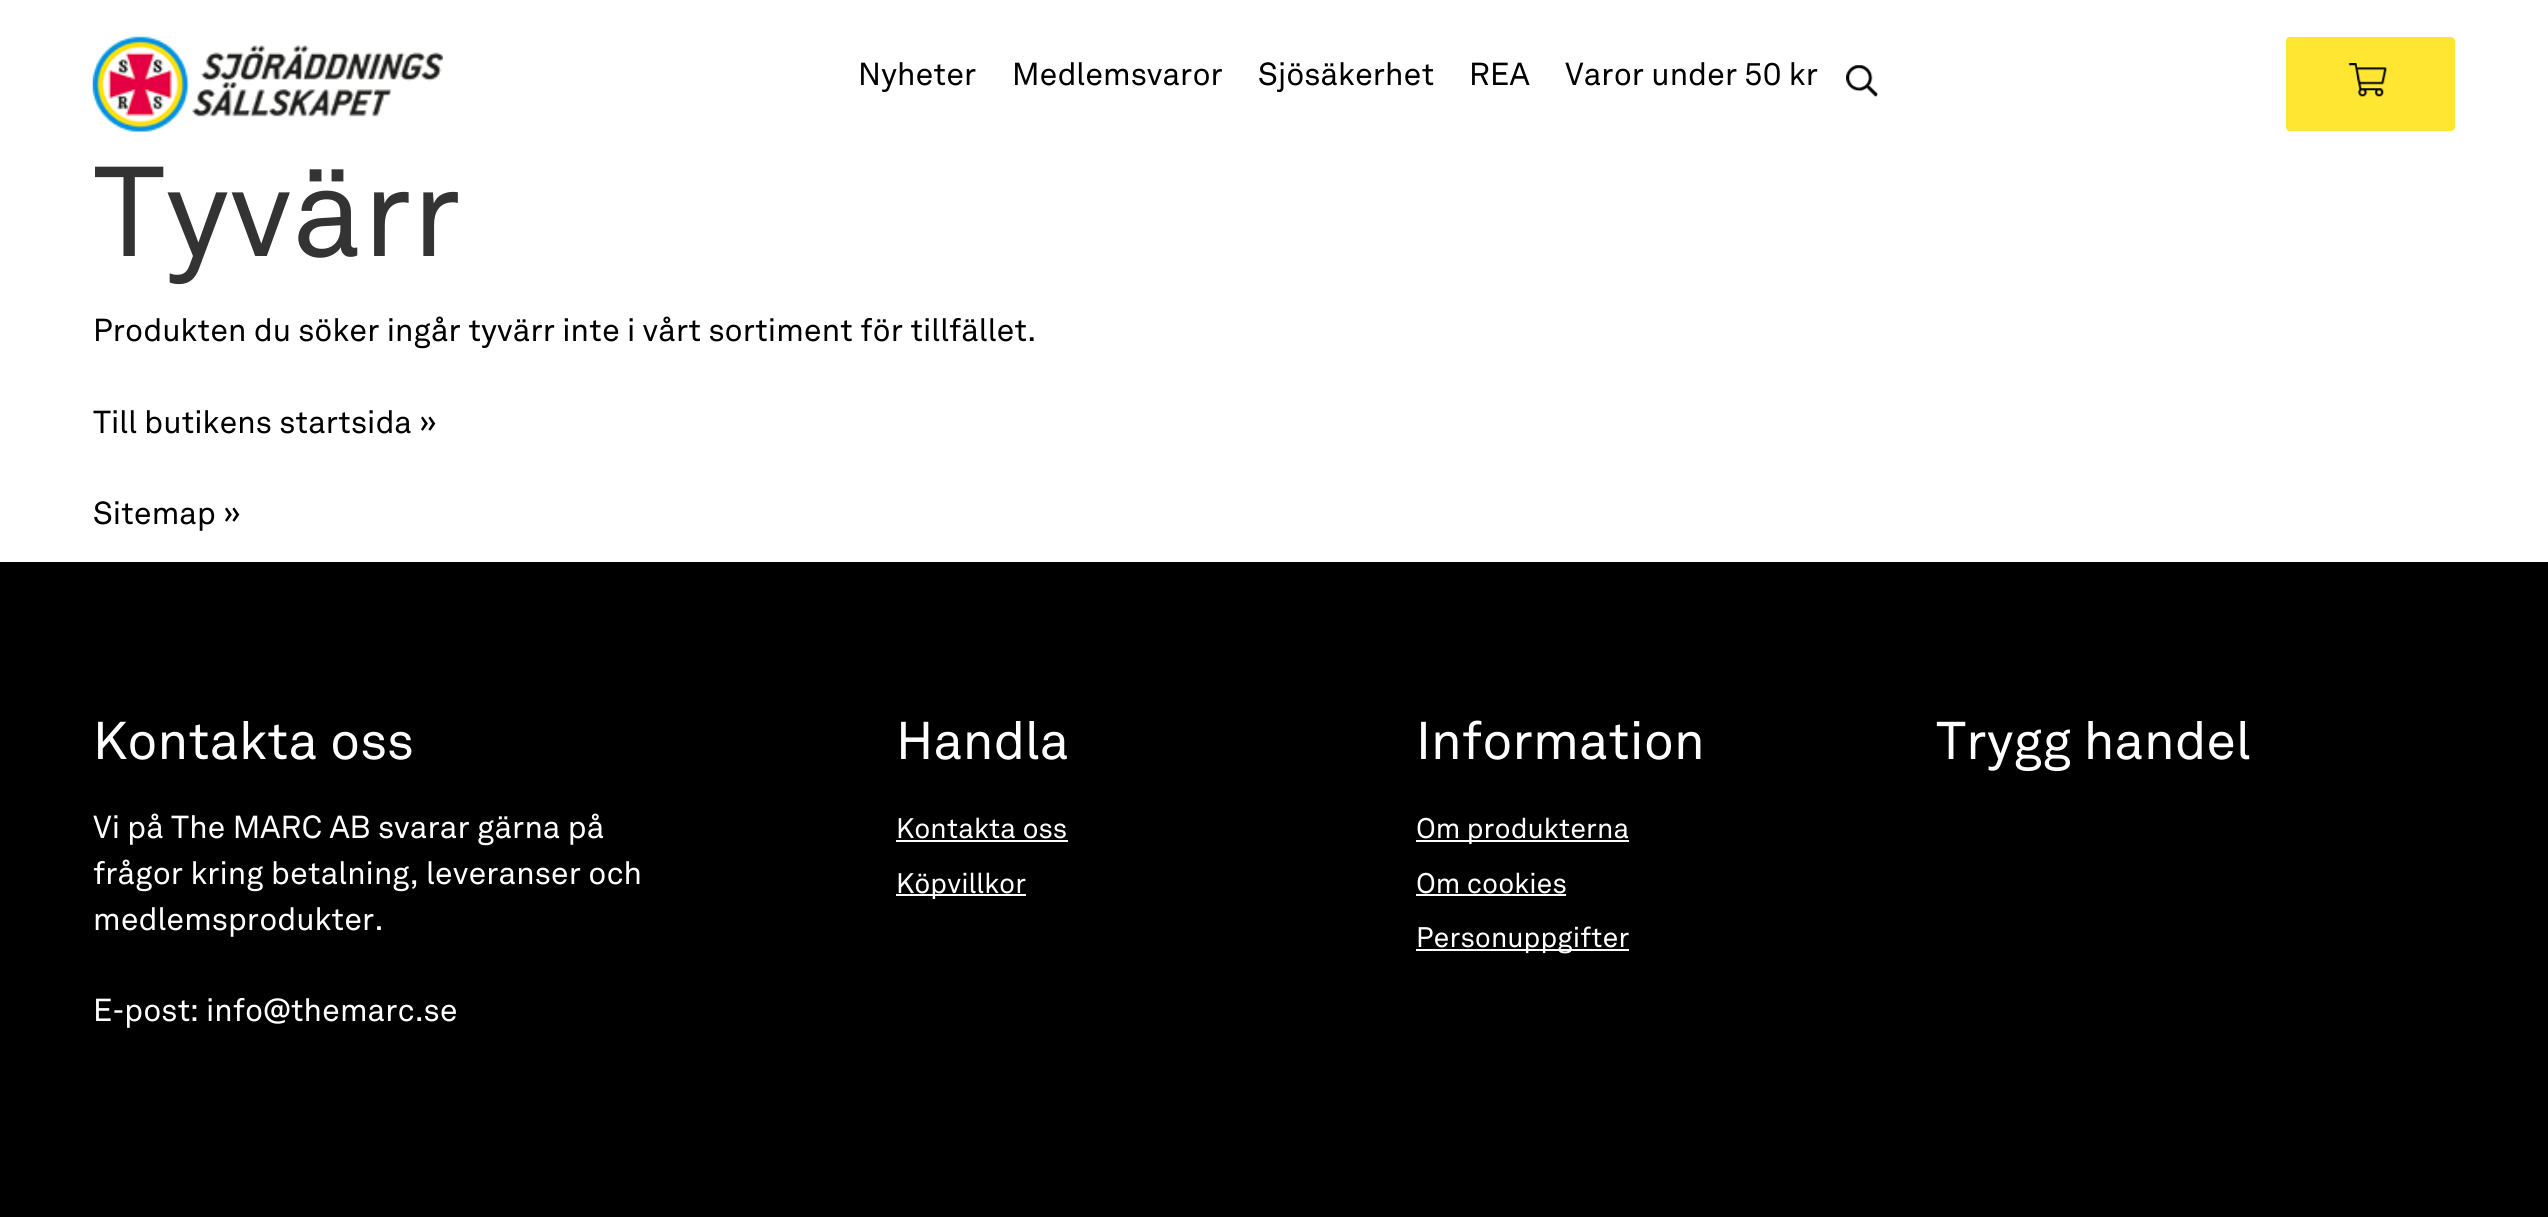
import math
import cairo

surface = cairo.ImageSurface(cairo.FORMAT_RGB24, 2548, 1217)
cr = cairo.Context(surface)
options = cairo.FontOptions()
options.set_hint_metrics(cairo.HINT_METRICS_OFF)
options.set_hint_style(cairo.HINT_STYLE_NONE)
cr.set_font_options(options)
cr.set_miter_limit(4)


def rgb(code):
    cr.set_source_rgb(*(v / 255 for v in bytes.fromhex(code[-6:])))


def rrect(x, y, w, h, r):
    cr.new_sub_path()
    for i, (u, v) in enumerate([(x + w - r, y + h - r), (x + r, y + h - r), (x + r, y + r), (x + w - r, y + r)]):
        cr.arc(u, v, r, i * math.pi / 2, (i + 1) * math.pi / 2)
    cr.close_path()


def image(path, x, y, w, h):
    cr.save()
    cr.set_source_surface(cairo.ImageSurface.create_from_png(path), x, y)
    cr.rectangle(x, y, w, h)
    cr.fill()
    cr.restore()


rgb("#ffffff")
cr.paint()
image("img/1.png", 92, 36, 351, 96)
image("img/2.png", 1846, 65, 32, 32)
rgb("#ffe632")
rrect(2286, 37, 169, 94, 4)
cr.fill()
image("img/3.png", 2348, 63, 39, 34)
for x, y, w, h, color in [
    (0, 562, 2548, 655, "#000000"),
    (896, 840, 172, 2, "#ffffff"),
    (896, 894, 130, 2, "#ffffff"),
    (1416, 840, 213, 2, "#ffffff"),
    (1416, 894, 150, 2, "#ffffff"),
    (1416, 949, 213, 2, "#ffffff"),
]:
    rgb(color)
    cr.rectangle(x, y, w, h)
    cr.fill()
cr.select_font_face("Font")
cr.set_font_size(31.5)
rgb("#000000")
for x, y, s in [
    (858, 85, "Nyheter"),
    (1012, 85, "Medlemsvaror"),
    (1258, 85, "Sjösäkerhet"),
    (1469, 85, "REA"),
    (1565, 85, "Varor under 50 kr"),
]:
    cr.move_to(x, y)
    cr.show_text(s)
cr.set_font_size(126)
rgb("#333333")
cr.move_to(93, 256)
cr.show_text("Tyvärr")
cr.set_font_size(31.5)
rgb("#000000")
for x, y, s in [
    (93, 341, "Produkten du söker ingår tyvärr inte i vårt sortiment för tillfället."),
    (93, 433, "Till butikens startsida »"),
    (93, 524, "Sitemap »"),
]:
    cr.move_to(x, y)
    cr.show_text(s)
cr.set_font_size(52.5)
rgb("#ffffff")
cr.move_to(93, 759)
cr.show_text("Kontakta oss")
cr.set_font_size(31.5)
for x, y, s in [
    (93, 838, "Vi på The MARC AB svarar gärna på"),
    (93, 884, "frågor kring betalning, leveranser och"),
    (93, 930, "medlemsprodukter."),
    (93, 1021, "E-post: info@themarc.se"),
]:
    cr.move_to(x, y)
    cr.show_text(s)
cr.set_font_size(52.5)
cr.move_to(896, 759)
cr.show_text("Handla")
cr.set_font_size(28)
cr.move_to(896, 838)
cr.show_text("Kontakta oss")
cr.move_to(896, 893)
cr.show_text("Köpvillkor")
cr.set_font_size(52.5)
cr.move_to(1416, 759)
cr.show_text("Information")
cr.set_font_size(28)
for x, y, s in [
    (1416, 838, "Om produkterna"),
    (1416, 893, "Om cookies"),
    (1416, 947, "Personuppgifter"),
]:
    cr.move_to(x, y)
    cr.show_text(s)
cr.set_font_size(52.5)
cr.move_to(1936, 759)
cr.show_text("Trygg handel")
surface.write_to_png("page.png")
